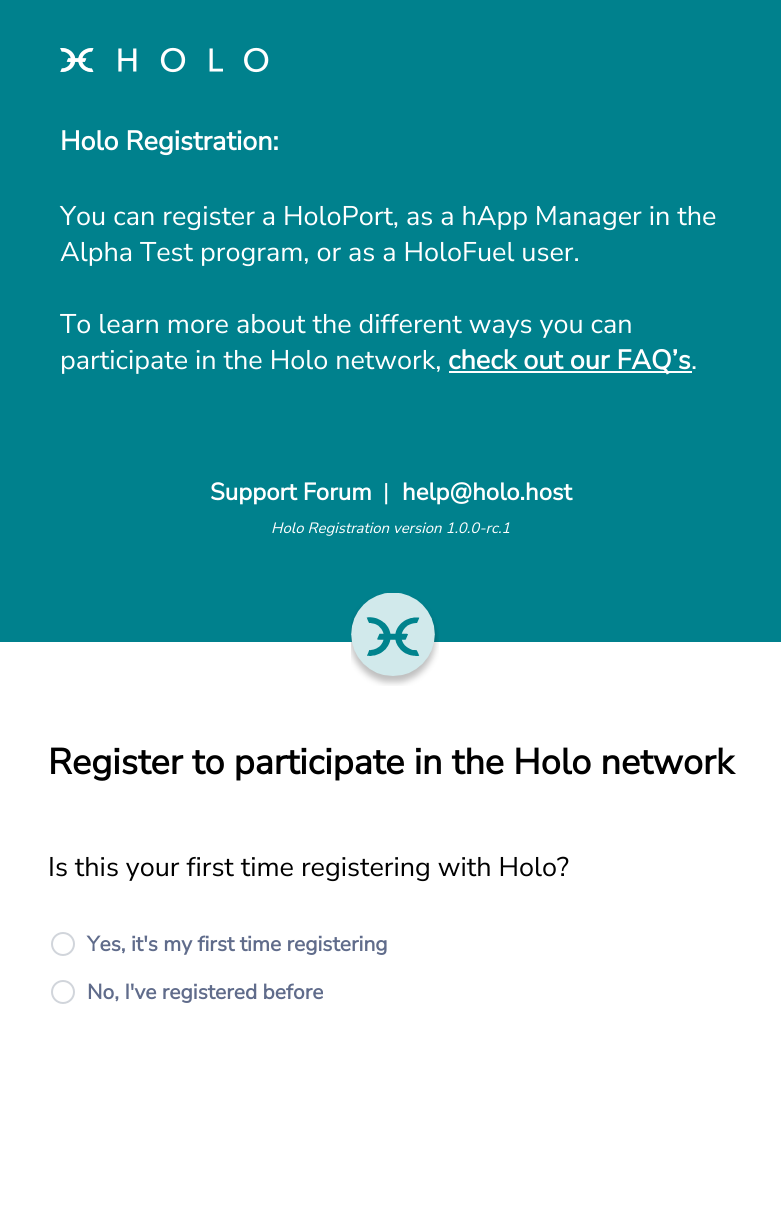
import math
import cairo

surface = cairo.ImageSurface(cairo.FORMAT_RGB24, 781, 1216)
cr = cairo.Context(surface)
options = cairo.FontOptions()
options.set_hint_metrics(cairo.HINT_METRICS_OFF)
options.set_hint_style(cairo.HINT_STYLE_NONE)
cr.set_font_options(options)
cr.set_miter_limit(4)


def rgb(code):
    cr.set_source_rgb(*(v / 255 for v in bytes.fromhex(code[-6:])))


def image(path, x, y, w, h):
    cr.save()
    cr.set_source_surface(cairo.ImageSurface.create_from_png(path), x, y)
    cr.rectangle(x, y, w, h)
    cr.fill()
    cr.restore()


rgb("#ffffff")
cr.paint()
rgb("#00818d")
cr.rectangle(0, 0, 781, 642)
cr.fill()
image("img/1.png", 60, 47, 209, 26)
rgb("#ffffff")
cr.rectangle(449, 371, 243, 2)
cr.fill()
image("img/2.png", 351, 593, 88, 93)
cr.arc(63, 944, 11, 0, 2 * math.pi)
rgb("#d1d5db")
cr.stroke()
cr.arc(63, 992, 11, 0, 2 * math.pi)
cr.stroke()
cr.select_font_face("Nunito Sans", cairo.FONT_SLANT_NORMAL, cairo.FONT_WEIGHT_BOLD)
cr.set_font_size(27)
rgb("#ffffff")
cr.move_to(60, 150)
cr.show_text("Holo Registration:")
cr.select_font_face("Nunito Sans ExtraLight")
for x, y, s in [
    (60, 225, "You can register a HoloPort, as a hApp Manager in the"),
    (60, 261, "Alpha Test program, or as a HoloFuel user."),
    (60, 333, "To learn more about the different ways you can"),
    (60, 369, "participate in the Holo network,"),
]:
    cr.move_to(x, y)
    cr.show_text(s)
cr.select_font_face("Nunito Sans", cairo.FONT_SLANT_NORMAL, cairo.FONT_WEIGHT_BOLD)
cr.move_to(448, 369)
cr.show_text("check out our FAQ’s")
cr.select_font_face("Nunito Sans ExtraLight")
cr.move_to(691, 369)
cr.show_text(".")
cr.select_font_face("Nunito Sans", cairo.FONT_SLANT_NORMAL, cairo.FONT_WEIGHT_BOLD)
cr.set_font_size(24)
cr.move_to(210, 500)
cr.show_text("Support Forum")
cr.select_font_face("Nunito Sans ExtraLight")
cr.move_to(383, 500)
cr.show_text("|")
cr.select_font_face("Nunito Sans", cairo.FONT_SLANT_NORMAL, cairo.FONT_WEIGHT_BOLD)
cr.move_to(402, 500)
cr.show_text("help@holo.host")
cr.select_font_face("Nunito Sans ExtraLight", cairo.FONT_SLANT_ITALIC)
cr.set_font_size(15)
cr.move_to(271, 533)
cr.show_text("Holo Registration version 1.0.0-rc.1")
cr.select_font_face("Nunito Sans", cairo.FONT_SLANT_NORMAL, cairo.FONT_WEIGHT_BOLD)
cr.set_font_size(36)
rgb("#000000")
cr.move_to(48, 774)
cr.show_text("Register to participate in the Holo network")
cr.select_font_face("Nunito Sans ExtraLight")
cr.set_font_size(27)
cr.move_to(48, 876)
cr.show_text("Is this your first time registering with Holo?")
cr.select_font_face("Nunito Sans", cairo.FONT_SLANT_NORMAL, cairo.FONT_WEIGHT_BOLD)
cr.set_font_size(21)
rgb("#606c8b")
cr.move_to(87, 951)
cr.show_text("Yes, it's my first time registering")
cr.move_to(87, 999)
cr.show_text("No, I've registered before")
surface.write_to_png("page.png")
